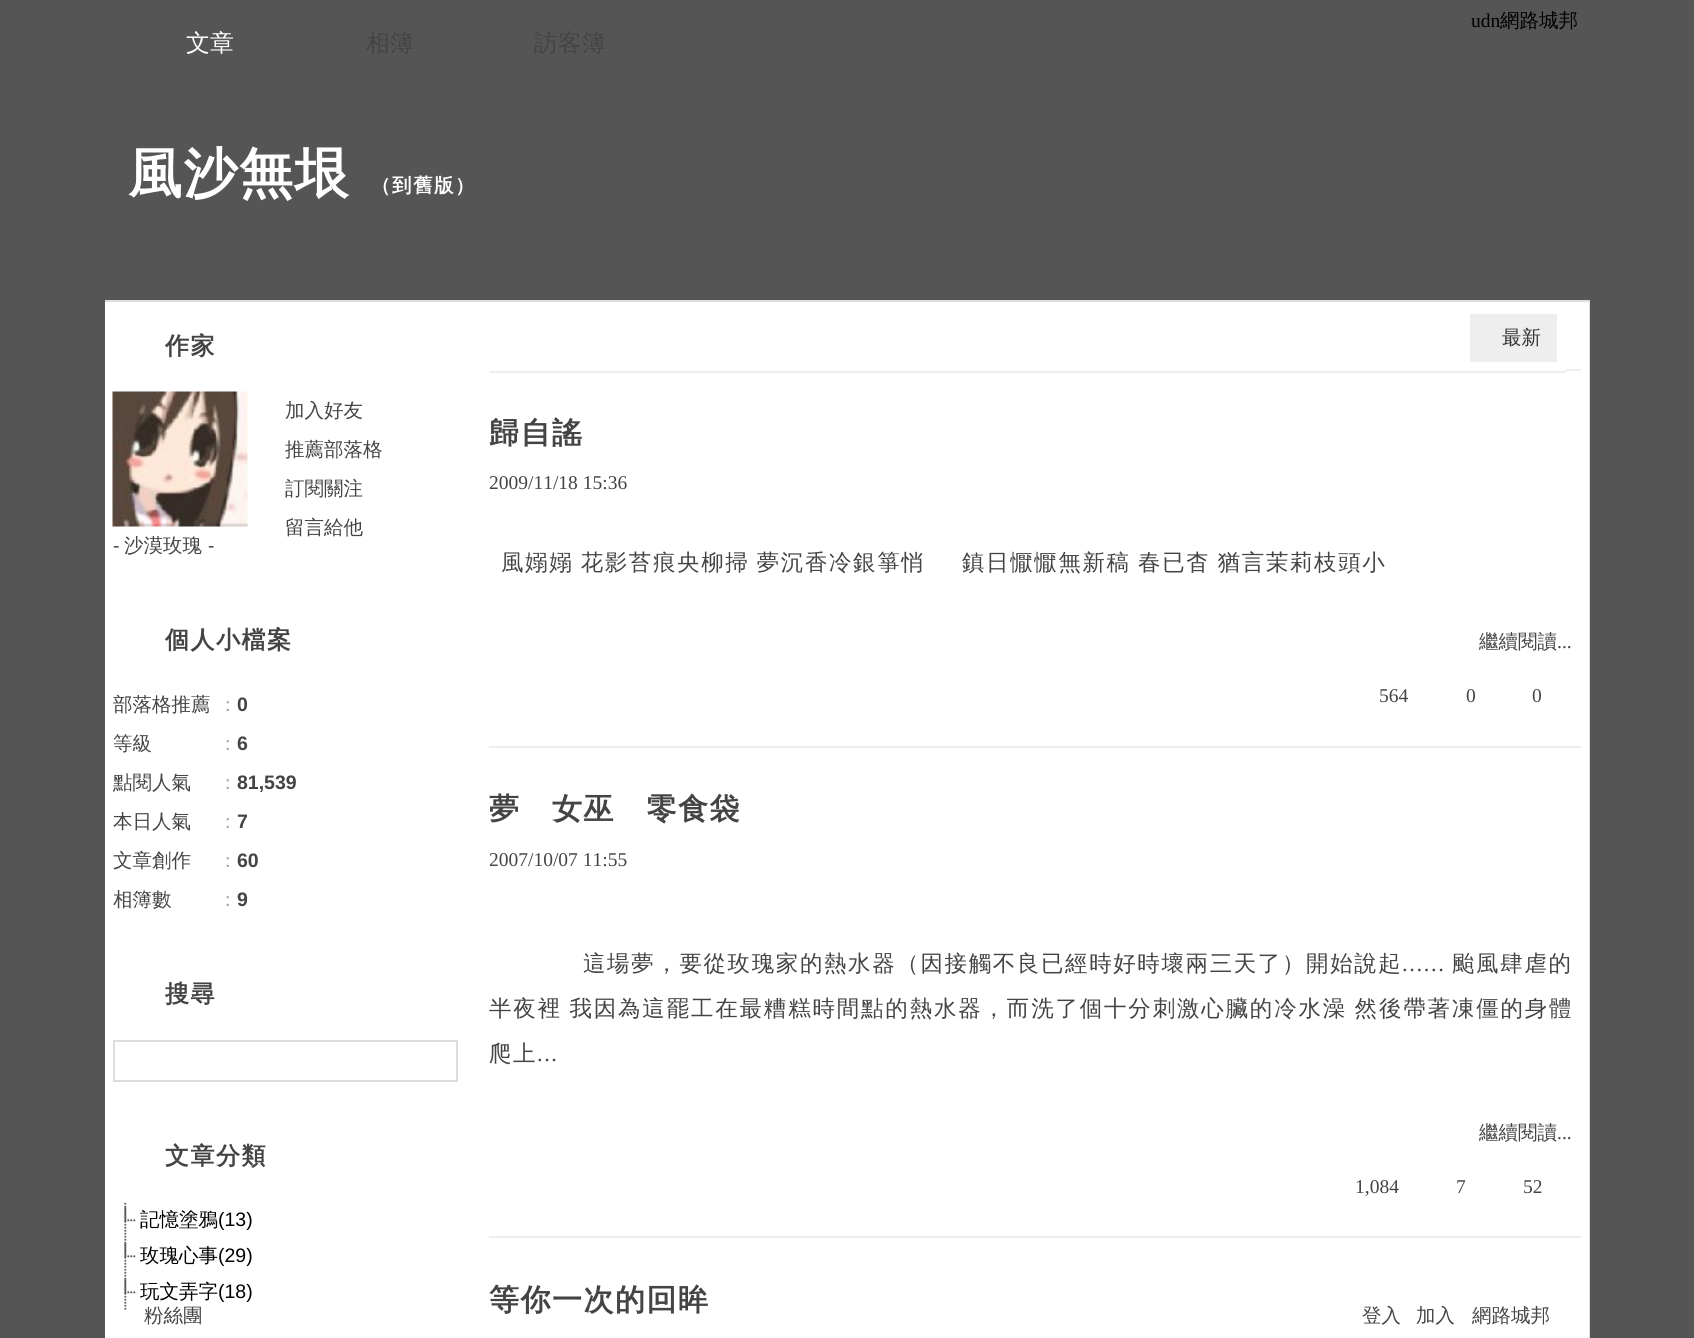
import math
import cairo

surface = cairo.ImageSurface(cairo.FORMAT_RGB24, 1694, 1338)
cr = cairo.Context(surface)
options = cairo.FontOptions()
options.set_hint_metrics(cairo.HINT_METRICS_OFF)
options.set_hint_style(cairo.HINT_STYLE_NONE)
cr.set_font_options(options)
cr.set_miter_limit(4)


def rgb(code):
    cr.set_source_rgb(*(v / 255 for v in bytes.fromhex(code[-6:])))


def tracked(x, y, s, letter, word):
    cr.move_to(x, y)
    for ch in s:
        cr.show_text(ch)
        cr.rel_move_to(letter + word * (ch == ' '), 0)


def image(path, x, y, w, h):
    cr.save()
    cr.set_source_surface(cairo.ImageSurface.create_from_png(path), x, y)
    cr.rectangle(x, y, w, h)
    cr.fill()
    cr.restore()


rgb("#555555")
cr.paint()
rgb("#dddddd")
cr.rectangle(105, 300, 1485, 2)
cr.fill()
rgb("#ffffff")
cr.rectangle(105, 302, 1484, 1036)
cr.fill()
image("img/1.png", 112, 391, 136, 136)
for x, y, w, h, color in [
    (113, 1040, 345, 2, "#dddddd"),
    (113, 1080, 292, 2, "#dddddd"),
    (113, 1040, 2, 42, "#dddddd"),
    (456, 1040, 2, 42, "#dddddd"),
    (405, 1080, 53, 2, "#dddddd"),
]:
    rgb(color)
    cr.rectangle(x, y, w, h)
    cr.fill()
image("img/2.png", 124, 1202, 3, 36)
image("img/3.png", 124, 1207, 12, 15)
image("img/2.png", 124, 1238, 3, 36)
image("img/3.png", 124, 1243, 12, 15)
image("img/2.png", 124, 1274, 3, 36)
image("img/3.png", 124, 1279, 12, 15)
for x, y, w, h, color in [
    (1589, 302, 1, 1036, "#dddddd"),
    (489, 371, 1077, 2, "#eeeeee"),
    (1470, 314, 87, 48, "#eeeeee"),
    (1566, 369, 15, 2, "#eeeeee"),
    (489, 746, 1092, 2, "#eeeeee"),
    (489, 1236, 1092, 2, "#eeeeee"),
]:
    rgb(color)
    cr.rectangle(x, y, w, h)
    cr.fill()
cr.select_font_face("Liberation Serif")
cr.set_font_size(19.5)
rgb("#000000")
cr.move_to(1471, 27)
cr.show_text("udn")
cr.select_font_face("WenQuanYi Zen Hei Medium")
cr.move_to(1500, 27)
cr.show_text("網路城邦")
cr.set_font_size(24)
rgb("#ffffff")
cr.move_to(186, 51)
cr.show_text("文章")
rgb("#444444")
cr.move_to(366, 51)
cr.show_text("相簿")
cr.move_to(534, 51)
cr.show_text("訪客簿")
cr.select_font_face("WenQuanYi Zen Hei", cairo.FONT_SLANT_NORMAL, cairo.FONT_WEIGHT_BOLD)
cr.set_font_size(54)
rgb("#ffffff")
tracked(128, 192, "風沙無垠", 1.5, 0)
cr.set_font_size(19.5)
tracked(371, 192, "（到舊版）", 1.5, 0)
cr.set_font_size(24)
rgb("#444444")
tracked(165, 354, "作家", 1.5, 0)
cr.select_font_face("WenQuanYi Zen Hei Medium")
cr.set_font_size(19.5)
for x, y, s in [
    (285, 417, "加入好友"),
    (285, 456, "推薦部落格"),
    (285, 495, "訂閱關注"),
    (285, 534, "留言給他"),
]:
    cr.move_to(x, y)
    cr.show_text(s)
cr.select_font_face("Liberation Sans")
cr.move_to(113, 552)
cr.show_text("-")
cr.select_font_face("WenQuanYi Zen Hei Medium")
cr.move_to(124, 552)
cr.show_text("沙漠玫瑰")
cr.select_font_face("Liberation Sans")
cr.move_to(208, 552)
cr.show_text("-")
cr.select_font_face("WenQuanYi Zen Hei", cairo.FONT_SLANT_NORMAL, cairo.FONT_WEIGHT_BOLD)
cr.set_font_size(24)
tracked(165, 648, "個人小檔案", 1.5, 0)
cr.select_font_face("WenQuanYi Zen Hei Medium")
cr.set_font_size(19.5)
cr.move_to(113, 711)
cr.show_text("部落格推薦")
rgb("#aaaaaa")
cr.move_to(218, 711)
cr.show_text("：")
cr.select_font_face("Liberation Sans", cairo.FONT_SLANT_NORMAL, cairo.FONT_WEIGHT_BOLD)
rgb("#444444")
cr.move_to(237, 711)
cr.show_text("0")
cr.select_font_face("WenQuanYi Zen Hei Medium")
cr.move_to(113, 750)
cr.show_text("等級")
rgb("#aaaaaa")
cr.move_to(218, 750)
cr.show_text("：")
cr.select_font_face("Liberation Sans", cairo.FONT_SLANT_NORMAL, cairo.FONT_WEIGHT_BOLD)
rgb("#444444")
cr.move_to(237, 750)
cr.show_text("6")
cr.select_font_face("WenQuanYi Zen Hei Medium")
cr.move_to(113, 789)
cr.show_text("點閱人氣")
rgb("#aaaaaa")
cr.move_to(218, 789)
cr.show_text("：")
cr.select_font_face("Liberation Sans", cairo.FONT_SLANT_NORMAL, cairo.FONT_WEIGHT_BOLD)
rgb("#444444")
cr.move_to(237, 789)
cr.show_text("81,539")
cr.select_font_face("WenQuanYi Zen Hei Medium")
cr.move_to(113, 828)
cr.show_text("本日人氣")
rgb("#aaaaaa")
cr.move_to(218, 828)
cr.show_text("：")
cr.select_font_face("Liberation Sans", cairo.FONT_SLANT_NORMAL, cairo.FONT_WEIGHT_BOLD)
rgb("#444444")
cr.move_to(237, 828)
cr.show_text("7")
cr.select_font_face("WenQuanYi Zen Hei Medium")
cr.move_to(113, 867)
cr.show_text("文章創作")
rgb("#aaaaaa")
cr.move_to(218, 867)
cr.show_text("：")
cr.select_font_face("Liberation Sans", cairo.FONT_SLANT_NORMAL, cairo.FONT_WEIGHT_BOLD)
rgb("#444444")
cr.move_to(237, 867)
cr.show_text("60")
cr.select_font_face("WenQuanYi Zen Hei Medium")
cr.move_to(113, 906)
cr.show_text("相簿數")
rgb("#aaaaaa")
cr.move_to(218, 906)
cr.show_text("：")
cr.select_font_face("Liberation Sans", cairo.FONT_SLANT_NORMAL, cairo.FONT_WEIGHT_BOLD)
rgb("#444444")
cr.move_to(237, 906)
cr.show_text("9")
cr.select_font_face("WenQuanYi Zen Hei", cairo.FONT_SLANT_NORMAL, cairo.FONT_WEIGHT_BOLD)
cr.set_font_size(24)
tracked(165, 1002, "搜尋", 1.5, 0)
tracked(165, 1164, "文章分類", 1.5, 0)
cr.select_font_face("WenQuanYi Zen Hei Medium")
cr.set_font_size(19.5)
rgb("#000000")
cr.move_to(140, 1226)
cr.show_text("記憶塗鴉")
cr.select_font_face("Liberation Sans")
cr.move_to(218, 1226)
cr.show_text("(13)")
cr.select_font_face("WenQuanYi Zen Hei Medium")
cr.move_to(140, 1262)
cr.show_text("玫瑰心事")
cr.select_font_face("Liberation Sans")
cr.move_to(218, 1262)
cr.show_text("(29)")
cr.select_font_face("WenQuanYi Zen Hei Medium")
cr.move_to(140, 1298)
cr.show_text("玩文弄字")
cr.select_font_face("Liberation Sans")
cr.move_to(218, 1298)
cr.show_text("(18)")
cr.select_font_face("WenQuanYi Zen Hei Medium")
rgb("#333333")
cr.move_to(1502, 344)
cr.show_text("最新")
cr.select_font_face("WenQuanYi Zen Hei", cairo.FONT_SLANT_NORMAL, cairo.FONT_WEIGHT_BOLD)
cr.set_font_size(30)
rgb("#444444")
tracked(489, 443, "歸自謠", 1.5, 0)
cr.select_font_face("Liberation Serif")
cr.set_font_size(19.5)
cr.move_to(489, 489)
cr.show_text("2009/11/18 15:36")
cr.select_font_face("WenQuanYi Zen Hei Medium")
cr.set_font_size(22.5)
tracked(501, 570, "風嫋嫋 花影苔痕央柳掃 夢沉香冷銀箏悄", 1.6, -1)
tracked(962, 570, "鎮日懨懨無新稿 春已杳 猶言茉莉枝頭小", 1.6, -1)
cr.set_font_size(19.5)
cr.move_to(1479, 648)
cr.show_text("繼續閱讀")
cr.select_font_face("Liberation Serif")
for x, y, s in [
    (1557, 648, "..."),
    (1379, 702, "564"),
    (1466, 702, "0"),
    (1532, 702, "0"),
]:
    cr.move_to(x, y)
    cr.show_text(s)
cr.select_font_face("WenQuanYi Zen Hei", cairo.FONT_SLANT_NORMAL, cairo.FONT_WEIGHT_BOLD)
cr.set_font_size(30)
tracked(489, 819, "夢　女巫　零食袋", 1.5, 0)
cr.select_font_face("Liberation Serif")
cr.set_font_size(19.5)
cr.move_to(489, 866)
cr.show_text("2007/10/07 11:55")
cr.select_font_face("WenQuanYi Zen Hei Medium")
cr.set_font_size(22.5)
tracked(583, 971, "這場夢，要從玫瑰家的熱水器（因接觸不良已經時好時壞兩三天了）開始說起", 1.6, 0)
cr.select_font_face("Liberation Serif")
tracked(1402, 971, "......", 1.6, 0)
cr.select_font_face("WenQuanYi Zen Hei Medium")
tracked(1452, 971, "颱風肆虐的", 1.6, 0)
tracked(489, 1016, "半夜裡 我因為這罷工在最糟糕時間點的熱水器，而洗了個十分刺激心臟的冷水澡 然後帶著凍僵的身體", 1.8, -1)
tracked(489, 1061, "爬上", 1.5, 0)
cr.select_font_face("Liberation Serif")
tracked(537, 1061, "...", 1.5, 0)
cr.select_font_face("WenQuanYi Zen Hei Medium")
cr.set_font_size(19.5)
cr.move_to(1479, 1139)
cr.show_text("繼續閱讀")
cr.select_font_face("Liberation Serif")
for x, y, s in [
    (1557, 1139, "..."),
    (1355, 1193, "1,084"),
    (1456, 1193, "7"),
    (1523, 1193, "52"),
]:
    cr.move_to(x, y)
    cr.show_text(s)
cr.select_font_face("WenQuanYi Zen Hei", cairo.FONT_SLANT_NORMAL, cairo.FONT_WEIGHT_BOLD)
cr.set_font_size(30)
tracked(489, 1310, "等你一次的回眸", 1.5, 0)
cr.select_font_face("WenQuanYi Zen Hei Medium")
cr.set_font_size(19.5)
for x, y, s in [
    (144, 1322, "粉絲團"),
    (1362, 1322, "登入"),
    (1416, 1322, "加入"),
    (1472, 1322, "網路城邦"),
]:
    cr.move_to(x, y)
    cr.show_text(s)
surface.write_to_png("page.png")
